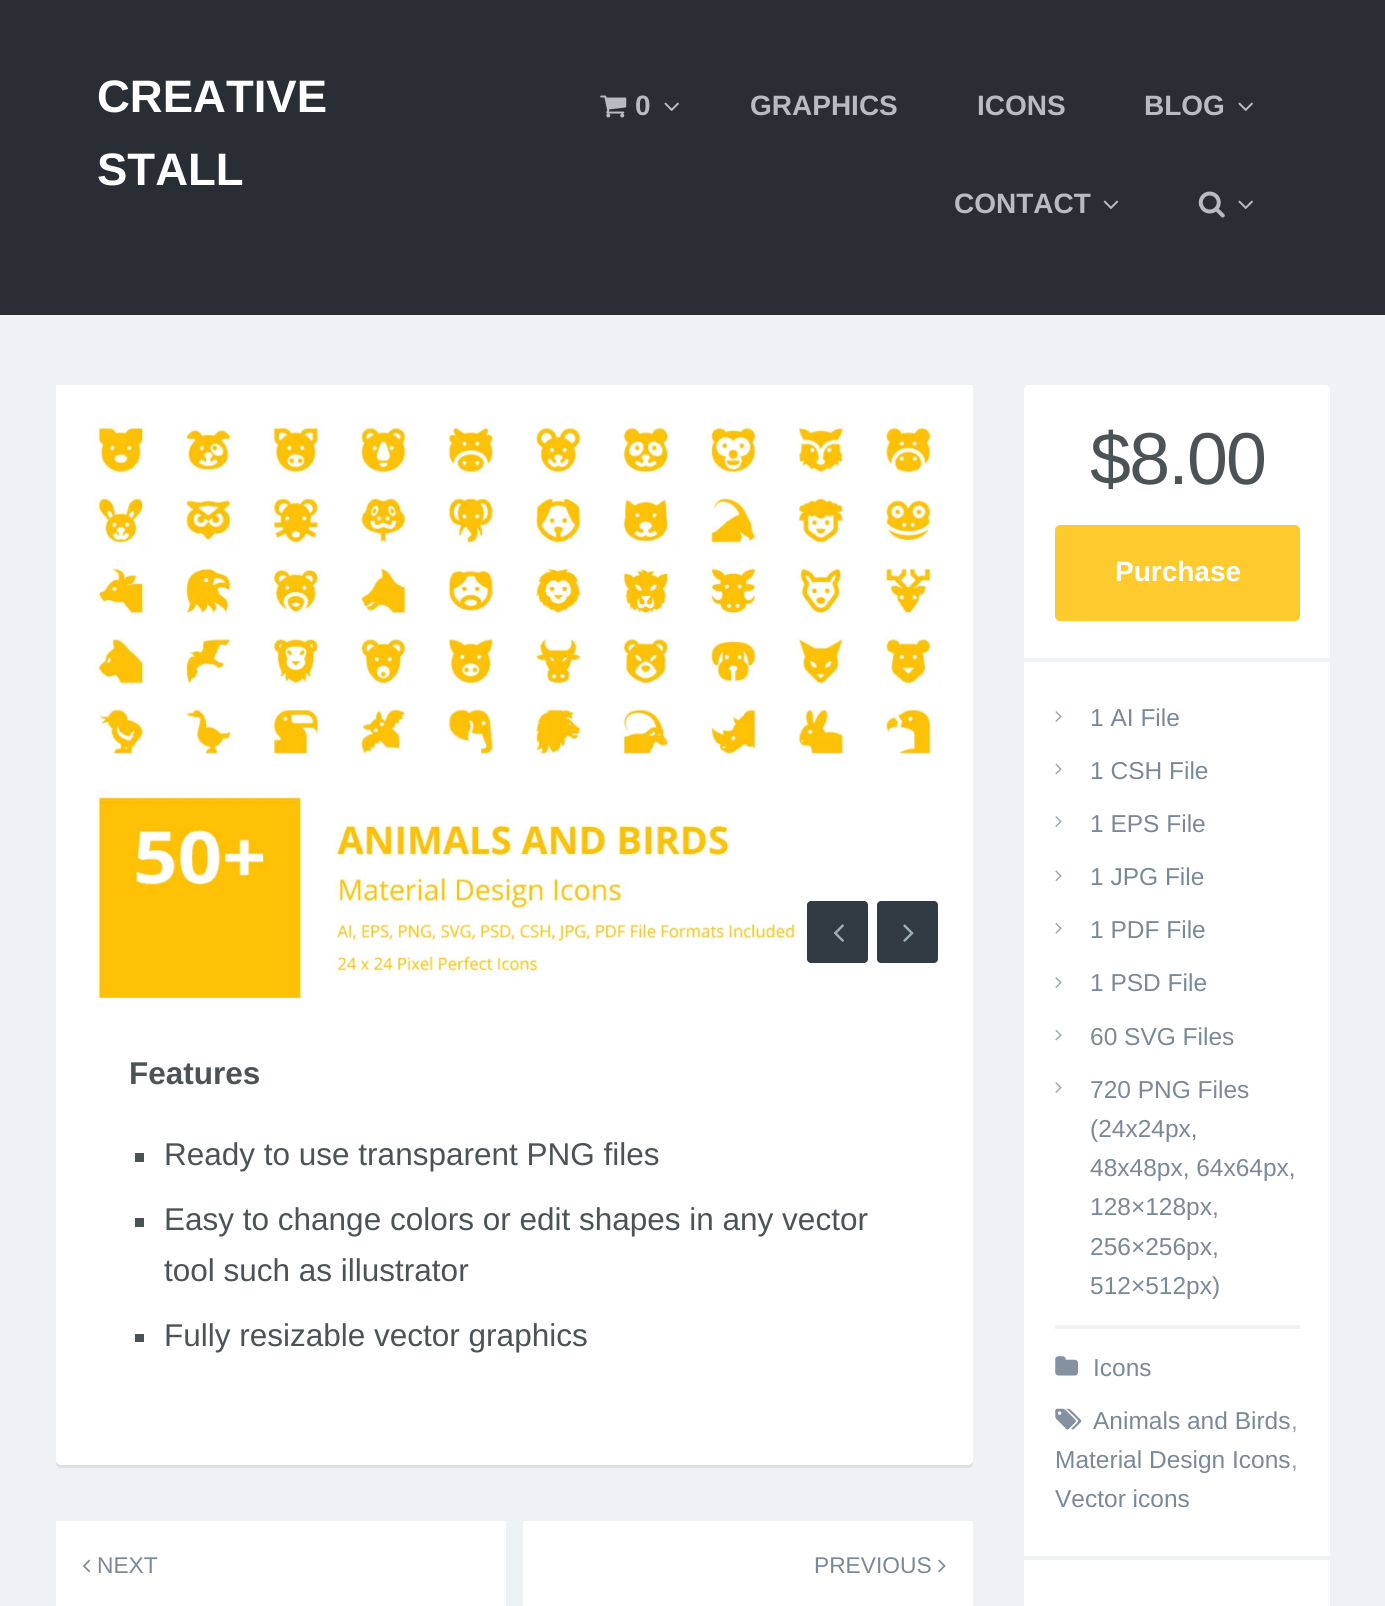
import math
import cairo

surface = cairo.ImageSurface(cairo.FORMAT_RGB24, 1385, 1606)
cr = cairo.Context(surface)
options = cairo.FontOptions()
options.set_hint_metrics(cairo.HINT_METRICS_OFF)
options.set_hint_style(cairo.HINT_STYLE_NONE)
cr.set_font_options(options)
cr.set_miter_limit(4)


def rgb(code):
    cr.set_source_rgb(*(v / 255 for v in bytes.fromhex(code[-6:])))


def tracked(x, y, s, letter, word):
    cr.move_to(x, y)
    for ch in s:
        cr.show_text(ch)
        cr.rel_move_to(letter + word * (ch == ' '), 0)


def rrect(x, y, w, h, r):
    cr.new_sub_path()
    for i, (u, v) in enumerate([(x + w - r, y + h - r), (x + r, y + h - r), (x + r, y + r), (x + w - r, y + r)]):
        cr.arc(u, v, r, i * math.pi / 2, (i + 1) * math.pi / 2)
    cr.close_path()


def image(path, x, y, w, h):
    cr.save()
    cr.set_source_surface(cairo.ImageSurface.create_from_png(path), x, y)
    cr.rectangle(x, y, w, h)
    cr.fill()
    cr.restore()


rgb("#eef2f5")
cr.paint()
rgb("#282e34")
cr.rectangle(0, 0, 1385, 315)
cr.fill()
image("img/1.png", 600, 95, 27, 23)
image("img/2.png", 664, 102, 15, 9)
image("img/2.png", 1238, 102, 15, 9)
image("img/3.png", 1103, 200, 16, 9)
image("img/4.png", 1198, 191, 27, 27)
image("img/2.png", 1238, 200, 15, 9)
rgb("#d9e1e7")
cr.new_path()
cr.move_to(56, 1460)
cr.line_to(56, 1463)
cr.curve_to(56, 1466, 58, 1468, 61, 1468)
cr.line_to(968, 1468)
cr.curve_to(971, 1468, 973, 1466, 973, 1463)
cr.line_to(973, 1460)
cr.curve_to(973, 1462, 971, 1465, 968, 1465)
cr.line_to(61, 1465)
cr.curve_to(58, 1465, 56, 1462, 56, 1460)
cr.close_path()
cr.fill()
rgb("#ffffff")
rrect(56, 385, 917, 1080, 5)
cr.fill()
image("img/5.png", 56, 385, 917, 613)
rgb("#323b44")
rrect(807, 901, 61, 62, 4)
cr.fill()
image("img/6.png", 833, 924, 11, 18)
rrect(877, 901, 61, 62, 4)
cr.fill()
image("img/7.png", 903, 924, 11, 18)
for x, y, w, h, color in [
    (135, 1153, 9, 9, "#4c5357"),
    (135, 1218, 9, 9, "#4c5357"),
    (135, 1334, 9, 8, "#4c5357"),
    (56, 1521, 450, 85, "#ffffff"),
]:
    rgb(color)
    cr.rectangle(x, y, w, h)
    cr.fill()
image("img/8.png", 82, 1559, 9, 14)
cr.rectangle(523, 1521, 450, 85)
cr.fill()
image("img/9.png", 938, 1559, 8, 14)
rrect(1024, 385, 306, 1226, 5)
cr.fill()
rgb("#eef2f5")
cr.rectangle(1024, 658, 306, 4)
cr.fill()
rgb("#fecb2f")
rrect(1055, 525, 245, 96, 5)
cr.fill()
rgb("#eef2f5")
cr.rectangle(1024, 1556, 306, 4)
cr.fill()
image("img/10.png", 1055, 711, 7, 11)
image("img/11.png", 1055, 763, 7, 12)
image("img/10.png", 1055, 816, 7, 11)
image("img/12.png", 1055, 870, 7, 12)
image("img/13.png", 1055, 923, 7, 11)
image("img/10.png", 1055, 977, 7, 11)
image("img/11.png", 1055, 1029, 7, 12)
image("img/10.png", 1055, 1082, 7, 11)
cr.rectangle(1055, 1325, 245, 4)
cr.fill()
image("img/14.png", 1055, 1356, 23, 20)
image("img/15.png", 1055, 1408, 27, 22)
cr.select_font_face("Liberation Sans", cairo.FONT_SLANT_NORMAL, cairo.FONT_WEIGHT_BOLD)
cr.set_font_size(45.5)
rgb("#ffffff")
cr.move_to(97, 112)
cr.show_text("CREATIVE")
cr.move_to(97, 185)
cr.show_text("STALL")
cr.set_font_size(28)
rgb("#b5bdc3")
for x, y, s in [
    (635, 115, "0"),
    (750, 115, "GRAPHICS"),
    (977, 115, "ICONS"),
    (1144, 115, "BLOG"),
    (954, 213, "CONTACT"),
]:
    cr.move_to(x, y)
    cr.show_text(s)
cr.set_font_size(31.5)
rgb("#4c5357")
cr.move_to(129, 1084)
cr.show_text("Features")
cr.select_font_face("Liberation Sans")
for x, y, s in [
    (164, 1165, "Ready to use transparent PNG files"),
    (164, 1230, "Easy to change colors or edit shapes in any vector"),
    (164, 1281, "tool such as illustrator"),
    (164, 1346, "Fully resizable vector graphics"),
]:
    cr.move_to(x, y)
    cr.show_text(s)
cr.set_font_size(22.75)
rgb("#7b8996")
cr.move_to(97, 1573)
cr.show_text("NEXT")
cr.move_to(814, 1573)
cr.show_text("PREVIOUS")
cr.set_font_size(73.5)
rgb("#4c5357")
tracked(1090, 484, "$8.00", -1.75, 0)
cr.select_font_face("Liberation Sans", cairo.FONT_SLANT_NORMAL, cairo.FONT_WEIGHT_BOLD)
cr.set_font_size(28)
rgb("#ffffff")
cr.move_to(1115, 581)
cr.show_text("Purchase")
cr.select_font_face("Liberation Sans")
cr.set_font_size(24.5)
rgb("#7b8996")
for x, y, s in [
    (1090, 726, "1 AI File"),
    (1090, 779, "1 CSH File"),
    (1090, 832, "1 EPS File"),
    (1090, 885, "1 JPG File"),
    (1090, 938, "1 PDF File"),
    (1090, 991, "1 PSD File"),
    (1090, 1045, "60 SVG Files"),
    (1090, 1098, "720 PNG Files"),
    (1090, 1137, "(24x24px,"),
    (1090, 1176, "48x48px, 64x64px,"),
    (1090, 1215, "128×128px,"),
    (1090, 1255, "256×256px,"),
    (1090, 1294, "512×512px)"),
    (1093, 1376, "Icons"),
    (1093, 1429, "Animals and Birds"),
]:
    cr.move_to(x, y)
    cr.show_text(s)
rgb("#9ba6ad")
cr.move_to(1291, 1429)
cr.show_text(",")
rgb("#7b8996")
cr.move_to(1055, 1468)
cr.show_text("Material Design Icons")
rgb("#9ba6ad")
cr.move_to(1291, 1468)
cr.show_text(",")
rgb("#7b8996")
cr.move_to(1055, 1507)
cr.show_text("Vector icons")
surface.write_to_png("page.png")
